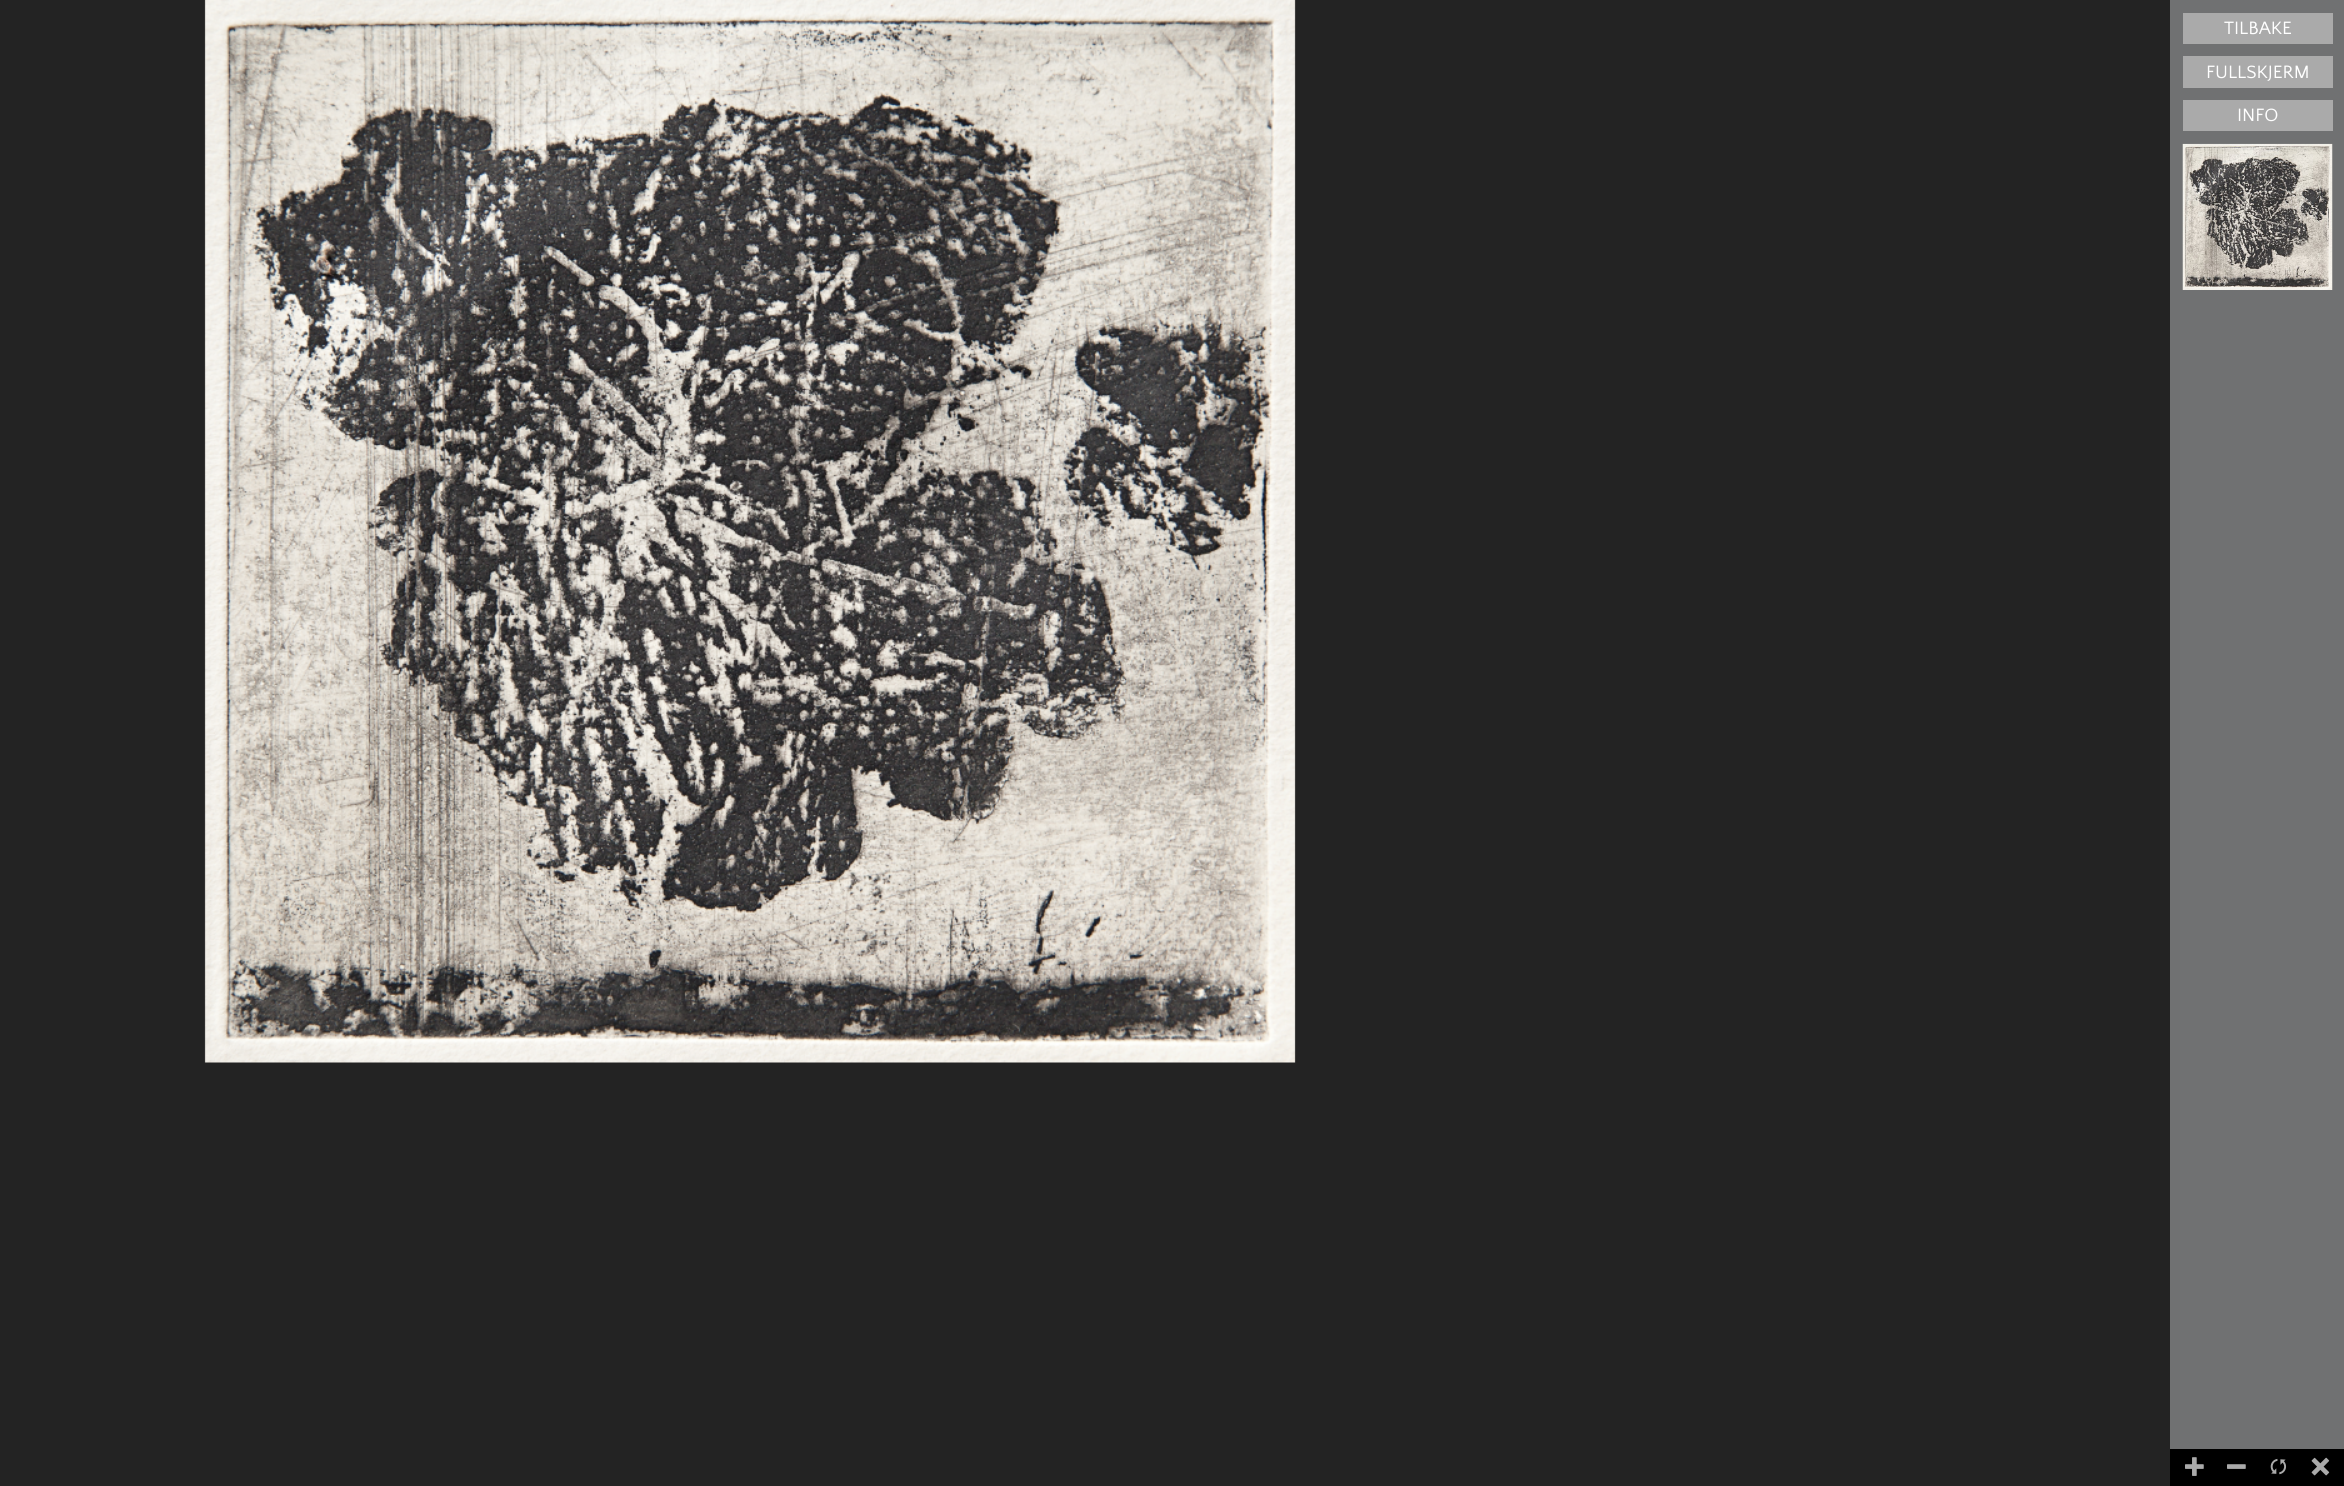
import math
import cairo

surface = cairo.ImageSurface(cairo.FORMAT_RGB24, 2344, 1486)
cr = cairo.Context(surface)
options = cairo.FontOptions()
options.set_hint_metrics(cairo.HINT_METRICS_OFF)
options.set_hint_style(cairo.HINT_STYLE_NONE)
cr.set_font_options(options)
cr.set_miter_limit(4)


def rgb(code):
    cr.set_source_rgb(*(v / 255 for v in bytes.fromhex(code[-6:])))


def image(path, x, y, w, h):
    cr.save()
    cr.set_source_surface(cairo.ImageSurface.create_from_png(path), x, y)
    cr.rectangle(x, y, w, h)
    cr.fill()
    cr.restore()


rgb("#232323")
cr.paint()
image("img/1.png", 204, 0, 1092, 1063)
for x, y, w, h, color in [
    (2170, 0, 174, 1449, "#707172"),
    (2183, 13, 150, 31, "#aaaaaa"),
    (2183, 56, 150, 32, "#aaaaaa"),
    (2183, 100, 150, 31, "#aaaaaa"),
]:
    rgb(color)
    cr.rectangle(x, y, w, h)
    cr.fill()
image("img/2.png", 2182, 143, 151, 147)
rgb("#000000")
cr.rectangle(2170, 1449, 174, 37)
cr.fill()
cr.select_font_face("Quattrocento Sans")
cr.set_font_size(18.75)
rgb("#ffffff")
for x, y, s in [
    (2224, 34, "TILBAKE"),
    (2206, 78, "FULLSKJERM"),
    (2237, 121, "INFO"),
]:
    cr.move_to(x, y)
    cr.show_text(s)
cr.select_font_face("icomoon")
rgb("#aaaaaa")
for x, y, s in [
    (2185, 1475, "✚"),
    (2227, 1475, "⎼"),
    (2269, 1475, "⥀"),
    (2311, 1475, "✕"),
]:
    cr.move_to(x, y)
    cr.show_text(s)
surface.write_to_png("page.png")
